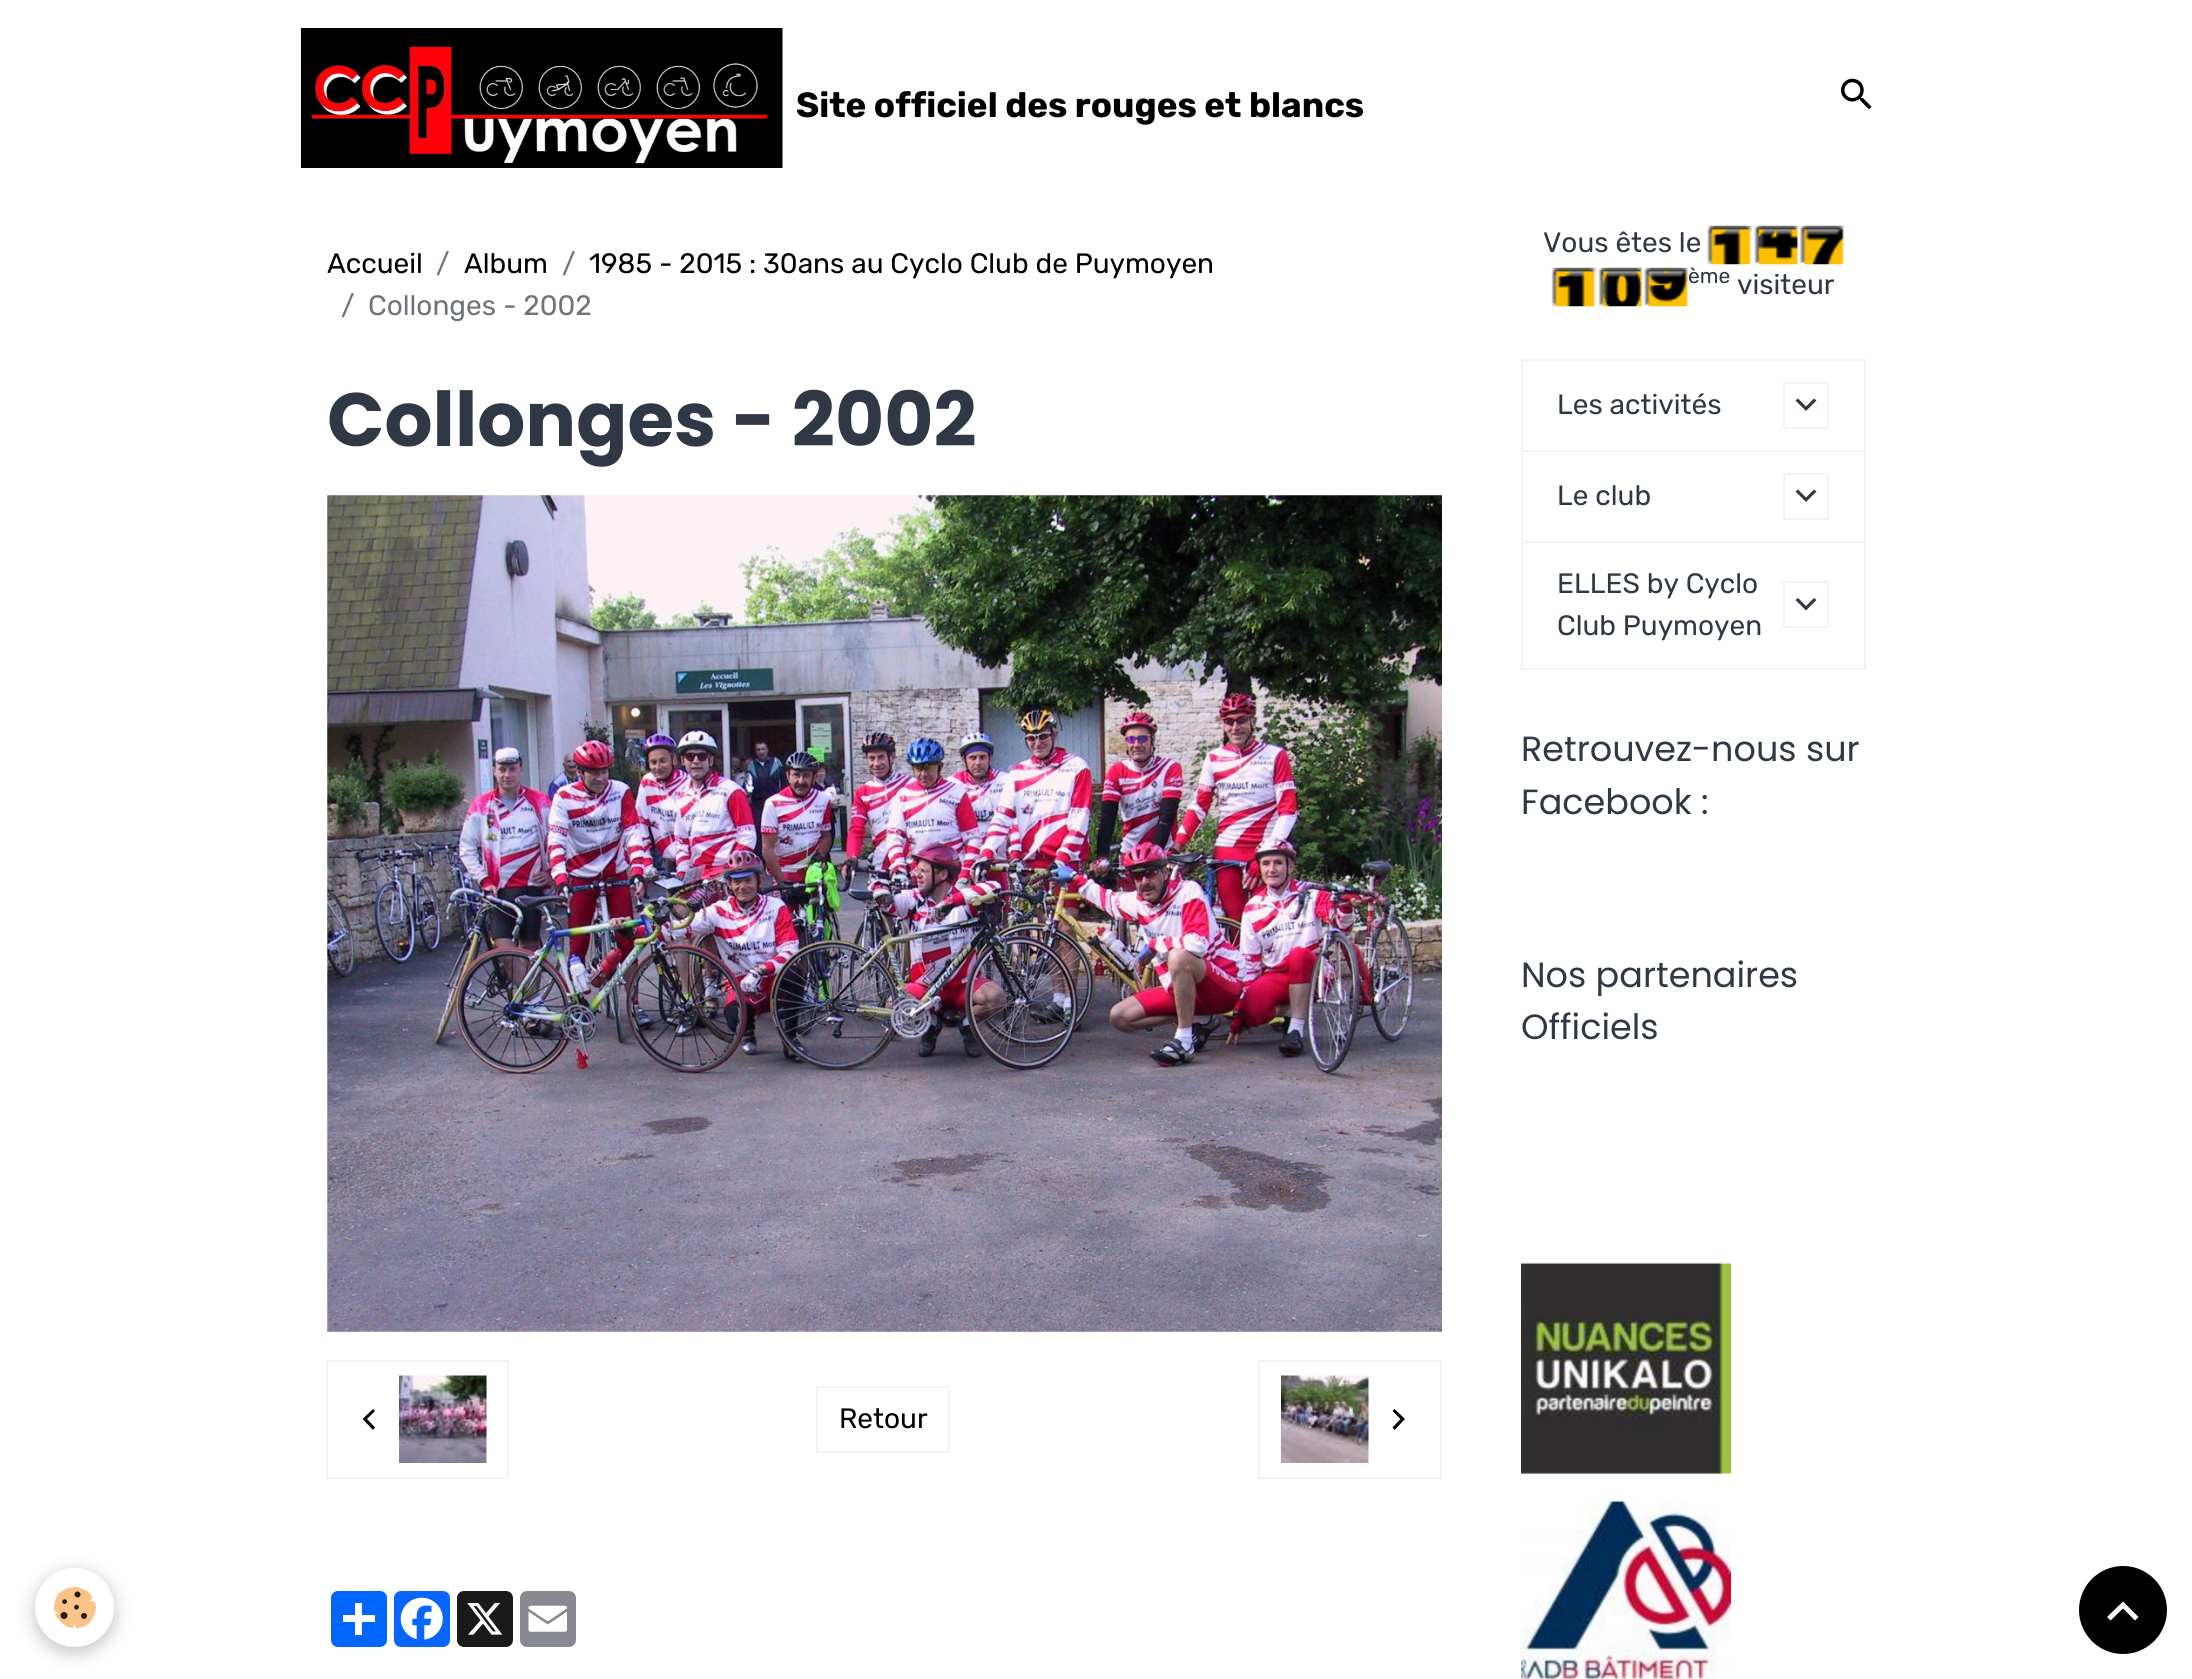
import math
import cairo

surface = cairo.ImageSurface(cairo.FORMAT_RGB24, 2192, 1679)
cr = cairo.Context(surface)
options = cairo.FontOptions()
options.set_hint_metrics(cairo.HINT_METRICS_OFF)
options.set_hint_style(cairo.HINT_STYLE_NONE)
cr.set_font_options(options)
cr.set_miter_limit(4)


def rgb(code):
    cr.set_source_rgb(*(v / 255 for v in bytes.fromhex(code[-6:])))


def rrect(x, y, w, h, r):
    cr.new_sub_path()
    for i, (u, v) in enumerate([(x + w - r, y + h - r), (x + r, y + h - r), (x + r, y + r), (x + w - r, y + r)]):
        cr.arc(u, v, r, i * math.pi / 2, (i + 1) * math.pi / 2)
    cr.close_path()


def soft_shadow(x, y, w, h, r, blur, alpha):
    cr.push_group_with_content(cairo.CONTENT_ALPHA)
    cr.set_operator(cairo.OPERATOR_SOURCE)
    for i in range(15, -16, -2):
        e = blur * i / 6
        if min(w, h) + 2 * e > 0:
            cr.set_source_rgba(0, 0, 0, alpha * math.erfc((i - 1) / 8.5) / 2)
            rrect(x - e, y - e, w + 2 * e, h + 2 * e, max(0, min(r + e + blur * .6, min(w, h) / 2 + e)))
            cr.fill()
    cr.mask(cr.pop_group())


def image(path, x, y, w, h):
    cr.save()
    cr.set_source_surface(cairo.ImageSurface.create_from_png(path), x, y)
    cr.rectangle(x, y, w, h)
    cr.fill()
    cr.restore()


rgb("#ffffff")
cr.paint()
image("img/1.png", 300, 28, 483, 140)
image("img/2.png", 1841, 78, 31, 32)
image("img/3.png", 327, 495, 1115, 837)
cr.rectangle(327, 1361, 181, 117)
rgb("#f3f3f3")
cr.stroke()
rgb("#000000")
cr.new_path()
cr.move_to(375, 1411)
cr.line_to(367, 1419)
cr.line_to(375, 1427.5)
cr.line_to(373, 1430)
cr.line_to(362.5, 1419)
cr.line_to(373, 1409)
cr.close_path()
cr.fill()
image("img/4.png", 399, 1375, 88, 88)
cr.rectangle(817, 1387, 132, 65)
rgb("#f3f3f3")
cr.stroke()
cr.rectangle(1259, 1361, 182, 117)
cr.stroke()
image("img/5.png", 1281, 1375, 88, 88)
rgb("#000000")
cr.new_path()
cr.move_to(1394.5, 1409)
cr.line_to(1405, 1419)
cr.line_to(1394.5, 1430)
cr.line_to(1392.5, 1427.5)
cr.line_to(1400.5, 1419)
cr.line_to(1392.5, 1411)
cr.close_path()
cr.fill()
rgb("#0166ff")
rrect(331, 1591, 56, 56, 7)
cr.fill()
rgb("#ffffff")
cr.rectangle(355, 1603, 7, 32)
cr.fill()
cr.rectangle(343, 1615, 32, 7)
cr.fill()
rgb("#0866ff")
rrect(394, 1591, 56, 56, 7)
cr.fill()
image("img/6.png", 400, 1597, 43, 43)
rgb("#1a1a1a")
rrect(457, 1591, 56, 56, 7)
cr.fill()
image("img/7.png", 467, 1603, 36, 32)
rgb("#888990")
rrect(520, 1591, 56, 56, 7)
cr.fill()
image("img/8.png", 528, 1605, 39, 27)
image("img/9.png", 1707, 225, 46, 40)
image("img/10.png", 1753, 225, 46, 40)
image("img/11.png", 1799, 225, 46, 40)
image("img/12.png", 1551, 267, 46, 40)
image("img/13.png", 1598, 267, 45, 40)
image("img/14.png", 1643, 267, 46, 40)
cr.rectangle(1522, 360, 343, 91)
rgb("#f3f3f3")
cr.stroke()
cr.rectangle(1784, 383, 44, 45)
cr.stroke()
rgb("#303745")
cr.new_path()
cr.move_to(1814, 398.5)
cr.line_to(1816.5, 400.5)
cr.line_to(1806, 411)
cr.line_to(1795.5, 400.5)
cr.line_to(1798, 398.5)
cr.line_to(1806, 406.5)
cr.close_path()
cr.fill()
cr.rectangle(1522, 451, 343, 91)
rgb("#f3f3f3")
cr.stroke()
cr.rectangle(1784, 474, 44, 45)
cr.stroke()
rgb("#303745")
cr.new_path()
cr.move_to(1814, 489.5)
cr.line_to(1816.5, 491.5)
cr.line_to(1806, 502)
cr.line_to(1795.5, 491.5)
cr.line_to(1798, 489.5)
cr.line_to(1806, 497.5)
cr.close_path()
cr.fill()
cr.rectangle(1522, 542, 343, 127)
rgb("#f3f3f3")
cr.stroke()
cr.rectangle(1784, 582, 44, 45)
cr.stroke()
rgb("#303745")
cr.new_path()
cr.move_to(1814, 598)
cr.line_to(1816.5, 600)
cr.line_to(1806, 610.5)
cr.line_to(1795.5, 600)
cr.line_to(1798, 598)
cr.line_to(1806, 606)
cr.close_path()
cr.fill()
image("img/15.png", 1521, 1262, 210, 212)
image("img/16.png", 1521, 1500, 210, 179)
rgb("#000000")
soft_shadow(35, 1573, 79, 79, 39.5, 9, 0.24)
rgb("#ffffff")
cr.arc(74.5, 1607.5, 39.5, 0, 2 * math.pi)
cr.fill()
image("img/17.png", 53, 1587, 43, 42)
rgb("#000000")
cr.arc(2123, 1610, 44, 0, 2 * math.pi)
cr.fill()
rgb("#ffffff")
cr.new_path()
cr.move_to(2123, 1601.5)
cr.line_to(2138.5, 1617)
cr.line_to(2135, 1620.5)
cr.line_to(2123, 1608.5)
cr.line_to(2110.5, 1620.5)
cr.line_to(2107, 1617)
cr.close_path()
cr.fill()
cr.select_font_face("Rubik", cairo.FONT_SLANT_NORMAL, cairo.FONT_WEIGHT_BOLD)
cr.set_font_size(35)
rgb("#000000")
cr.move_to(796, 117)
cr.show_text("Site officiel des rouges et blancs")
cr.select_font_face("Rubik")
cr.set_font_size(28)
cr.move_to(327, 273)
cr.show_text("Accueil")
rgb("#6e737d")
cr.move_to(436, 273)
cr.show_text("/")
rgb("#000000")
cr.move_to(464, 273)
cr.show_text("Album")
rgb("#6e737d")
cr.move_to(562, 273)
cr.show_text("/")
rgb("#000000")
cr.move_to(589, 273)
cr.show_text("1985 - 2015 : 30ans au Cyclo Club de Puymoyen")
rgb("#6e737d")
cr.move_to(341, 315)
cr.show_text("/")
cr.move_to(368, 315)
cr.show_text("Collonges - 2002")
cr.select_font_face("Poppins", cairo.FONT_SLANT_NORMAL, cairo.FONT_WEIGHT_BOLD)
cr.set_font_size(75.5)
rgb("#303745")
cr.move_to(327, 446)
cr.show_text("Collonges - 2002")
cr.select_font_face("Rubik")
cr.set_font_size(28)
rgb("#000000")
cr.move_to(839, 1428)
cr.show_text("Retour")
rgb("#303745")
cr.move_to(1543, 252)
cr.show_text("Vous êtes le")
cr.set_font_size(21)
cr.move_to(1688, 283)
cr.show_text("ème")
cr.set_font_size(28)
for x, y, s in [
    (1737, 294, "visiteur"),
    (1557, 414, "Les activités"),
    (1557, 505, "Le club"),
    (1557, 593, "ELLES by Cyclo"),
    (1557, 635, "Club Puymoyen"),
]:
    cr.move_to(x, y)
    cr.show_text(s)
cr.select_font_face("Poppins")
cr.set_font_size(35)
for x, y, s in [
    (1521, 761, "Retrouvez-nous sur"),
    (1521, 814, "Facebook :"),
    (1521, 987, "Nos partenaires"),
    (1521, 1039, "Officiels"),
]:
    cr.move_to(x, y)
    cr.show_text(s)
surface.write_to_png("page.png")
